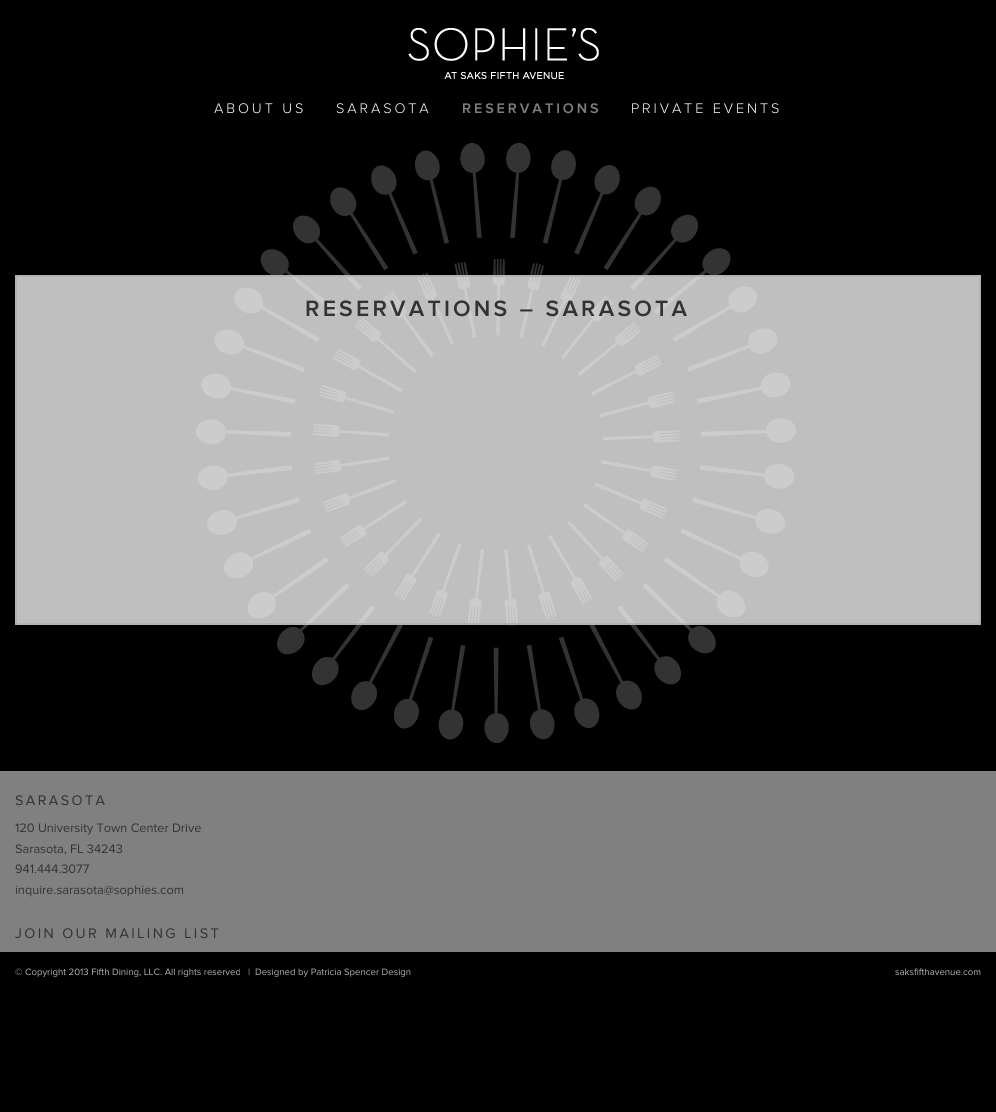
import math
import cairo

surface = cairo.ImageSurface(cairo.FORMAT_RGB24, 996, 1112)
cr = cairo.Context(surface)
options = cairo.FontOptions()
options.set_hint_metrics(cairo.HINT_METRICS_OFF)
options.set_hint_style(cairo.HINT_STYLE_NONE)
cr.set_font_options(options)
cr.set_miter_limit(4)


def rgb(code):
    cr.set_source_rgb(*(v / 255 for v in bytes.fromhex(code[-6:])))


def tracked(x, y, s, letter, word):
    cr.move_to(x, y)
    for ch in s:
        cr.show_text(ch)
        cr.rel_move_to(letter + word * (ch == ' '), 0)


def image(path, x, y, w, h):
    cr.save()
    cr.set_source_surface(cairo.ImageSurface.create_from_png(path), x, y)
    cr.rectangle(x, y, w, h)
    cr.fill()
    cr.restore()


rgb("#000000")
cr.paint()
image("img/1.png", 408, 28, 191, 52)
image("img/2.png", 196, 143, 600, 600)
cr.set_source_rgba(1, 1, 1, 0.75)
cr.rectangle(16, 276, 964, 348)
cr.fill_preserve()
rgb("#b3b3b3")
cr.stroke()
rgb("#808080")
cr.rectangle(0, 771, 996, 181)
cr.fill()
cr.select_font_face("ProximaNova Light")
cr.set_font_size(14.4)
rgb("#ffffff")
tracked(214, 113, "ABOUT US", 2.9, 0)
tracked(336, 113, "SARASOTA", 2.9, 0)
cr.select_font_face("ProximaNova SemiBold")
rgb("#808080")
tracked(462, 113, "RESERVATIONS", 2.9, 0)
cr.select_font_face("ProximaNova Light")
rgb("#ffffff")
tracked(631, 113, "PRIVATE EVENTS", 2.9, 0)
cr.select_font_face("ProximaNova SemiBold")
cr.set_font_size(23)
rgb("#333333")
tracked(305, 316, "RESERVATIONS – SARASOTA", 3.2, 0)
cr.select_font_face("ProximaNova")
cr.set_font_size(14.4)
tracked(15, 805, "SARASOTA", 2.4, 0)
cr.set_font_size(12.75)
for x, y, s in [
    (15, 832, "120 University Town Center Drive"),
    (15, 853, "Sarasota, FL 34243"),
    (15, 873, "941.444.3077"),
    (15, 894, "inquire.sarasota@sophies.com"),
]:
    cr.move_to(x, y)
    cr.show_text(s)
cr.set_font_size(14.4)
tracked(15, 938, "JOIN OUR MAILING LIST", 2.4, 0)
cr.set_font_size(9.6)
rgb("#b3b3b3")
for x, y, s in [
    (15, 975, "© Copyright 2013 Fifth Dining, LLC. All rights reserved"),
    (248, 975, "|"),
    (255, 975, "Designed by Patricia Spencer Design"),
    (895, 975, "saksfifthavenue.com"),
]:
    cr.move_to(x, y)
    cr.show_text(s)
surface.write_to_png("page.png")
